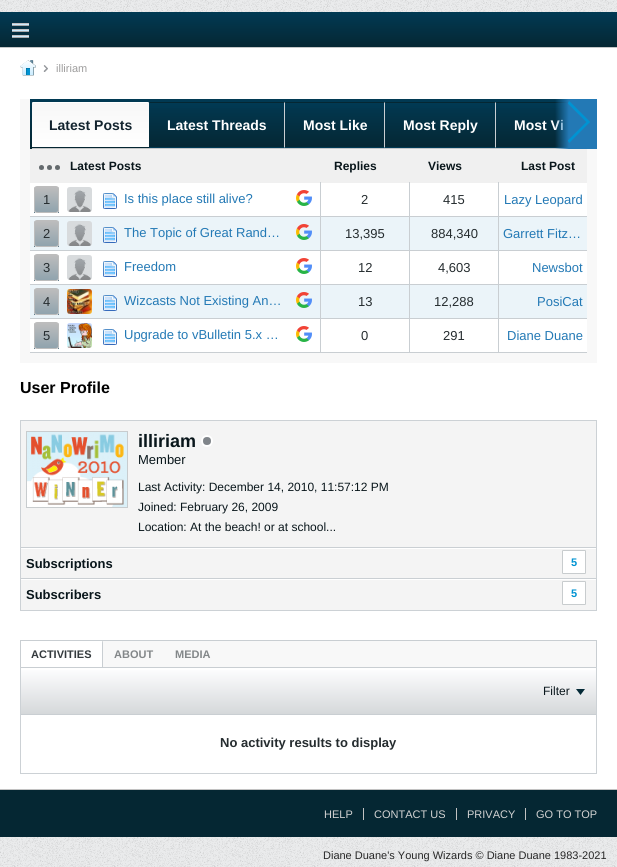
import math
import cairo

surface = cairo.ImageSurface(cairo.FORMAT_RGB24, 617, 867)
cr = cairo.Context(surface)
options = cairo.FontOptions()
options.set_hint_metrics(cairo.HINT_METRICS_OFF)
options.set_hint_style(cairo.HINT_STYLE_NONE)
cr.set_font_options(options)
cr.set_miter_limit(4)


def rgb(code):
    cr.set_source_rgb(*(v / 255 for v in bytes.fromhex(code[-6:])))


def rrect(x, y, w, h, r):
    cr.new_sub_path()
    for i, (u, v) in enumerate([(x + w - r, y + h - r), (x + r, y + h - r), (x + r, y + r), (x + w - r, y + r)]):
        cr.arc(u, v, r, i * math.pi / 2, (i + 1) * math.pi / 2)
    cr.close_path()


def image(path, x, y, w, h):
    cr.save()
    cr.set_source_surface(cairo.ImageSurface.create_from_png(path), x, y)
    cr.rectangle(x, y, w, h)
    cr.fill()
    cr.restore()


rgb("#eaebec")
cr.paint()
image("img/1.png", 0, 837, 617, 30)
image("img/2.png", 0, 0, 617, 12)
gradient = cairo.LinearGradient(309, 12, 309, 47)
gradient.add_color_stop_rgba(0, 0.004, 0.227, 0.329, 1)
gradient.add_color_stop_rgba(1, 0.02, 0.153, 0.2, 1)
cr.set_source(gradient)
cr.rectangle(0, 12, 617, 35)
cr.fill()
rgb("#c4c7c8")
cr.rectangle(0, 47, 617, 1)
cr.fill()
image("img/3.png", 12, 23, 17, 15)
rgb("#ffffff")
cr.rectangle(0, 48, 617, 741)
cr.fill()
image("img/4.png", 20, 60, 16, 16)
image("img/5.png", 43, 65, 5, 7)
rgb("#f8f8f8")
cr.rectangle(20, 99, 577, 264)
cr.fill()
gradient = cairo.LinearGradient(309, 99, 309, 149)
gradient.add_color_stop_rgba(0, 0.004, 0.227, 0.329, 1)
gradient.add_color_stop_rgba(1, 0.02, 0.153, 0.2, 1)
cr.set_source(gradient)
cr.rectangle(30, 99, 2, 50)
cr.fill()
gradient = cairo.LinearGradient(309, 99, 309, 148)
gradient.add_color_stop_rgba(0, 0.004, 0.227, 0.329, 1)
gradient.add_color_stop_rgba(1, 0.02, 0.153, 0.2, 1)
cr.set_source(gradient)
cr.rectangle(32, 99, 537, 49)
cr.fill()
rgb("#c4c7c8")
cr.rectangle(32, 148, 537, 1)
cr.fill()
gradient = cairo.LinearGradient(91, 59, 91, 103)
gradient.add_color_stop_rgba(0, 0.969, 0.969, 0.969, 1)
gradient.add_color_stop_rgba(1, 1, 1, 1, 1)
cr.set_source(gradient)
cr.new_path()
cr.move_to(33, 102)
cr.line_to(148, 102)
cr.curve_to(148.5, 102, 149, 102.5, 149, 103)
cr.line_to(32, 103)
cr.curve_to(32, 102.5, 32.5, 102, 33, 102)
cr.close_path()
cr.fill()
gradient = cairo.LinearGradient(91, 103, 91, 147)
gradient.add_color_stop_rgba(0, 0.969, 0.969, 0.969, 1)
gradient.add_color_stop_rgba(1, 1, 1, 1, 1)
cr.set_source(gradient)
cr.rectangle(32, 103, 117, 44)
cr.fill()
gradient = cairo.LinearGradient(217, 59, 217, 103)
gradient.add_color_stop_rgba(0, 0.004, 0.227, 0.329, 1)
gradient.add_color_stop_rgba(1, 0.02, 0.153, 0.2, 1)
cr.set_source(gradient)
cr.new_path()
cr.move_to(150, 102)
cr.line_to(284, 102)
cr.curve_to(284.5, 102, 285, 102.5, 285, 103)
cr.line_to(149, 103)
cr.curve_to(149, 102.5, 149.5, 102, 150, 102)
cr.close_path()
cr.fill()
gradient = cairo.LinearGradient(217, 103, 217, 147)
gradient.add_color_stop_rgba(0, 0.004, 0.227, 0.329, 1)
gradient.add_color_stop_rgba(1, 0.02, 0.153, 0.2, 1)
cr.set_source(gradient)
cr.rectangle(149, 103, 135, 5)
cr.fill()
gradient = cairo.LinearGradient(217, 147, 217, 191)
gradient.add_color_stop_rgba(0, 0.004, 0.227, 0.329, 1)
gradient.add_color_stop_rgba(1, 0.02, 0.153, 0.2, 1)
cr.set_source(gradient)
cr.rectangle(149, 147, 136, 1)
cr.fill()
rgb("#c9ced2")
cr.new_path()
cr.move_to(285, 148)
cr.line_to(285, 102)
cr.line_to(284, 103)
cr.line_to(284, 147)
cr.close_path()
cr.fill()
gradient = cairo.LinearGradient(335, 59, 335, 103)
gradient.add_color_stop_rgba(0, 0.004, 0.227, 0.329, 1)
gradient.add_color_stop_rgba(1, 0.02, 0.153, 0.2, 1)
cr.set_source(gradient)
cr.new_path()
cr.move_to(286, 102)
cr.line_to(384, 102)
cr.curve_to(384.5, 102, 385, 102.5, 385, 103)
cr.line_to(285, 103)
cr.curve_to(285, 102.5, 285.5, 102, 286, 102)
cr.close_path()
cr.fill()
gradient = cairo.LinearGradient(335, 103, 335, 147)
gradient.add_color_stop_rgba(0, 0.004, 0.227, 0.329, 1)
gradient.add_color_stop_rgba(1, 0.02, 0.153, 0.2, 1)
cr.set_source(gradient)
cr.rectangle(285, 103, 99, 5)
cr.fill()
gradient = cairo.LinearGradient(335, 147, 335, 191)
gradient.add_color_stop_rgba(0, 0.004, 0.227, 0.329, 1)
gradient.add_color_stop_rgba(1, 0.02, 0.153, 0.2, 1)
cr.set_source(gradient)
cr.rectangle(285, 147, 100, 1)
cr.fill()
rgb("#c9ced2")
cr.new_path()
cr.move_to(385, 148)
cr.line_to(385, 102)
cr.line_to(384, 103)
cr.line_to(384, 147)
cr.close_path()
cr.fill()
gradient = cairo.LinearGradient(441, 59, 441, 103)
gradient.add_color_stop_rgba(0, 0.004, 0.227, 0.329, 1)
gradient.add_color_stop_rgba(1, 0.02, 0.153, 0.2, 1)
cr.set_source(gradient)
cr.new_path()
cr.move_to(386, 102)
cr.line_to(495, 102)
cr.curve_to(495.5, 102, 496, 102.5, 496, 103)
cr.line_to(385, 103)
cr.curve_to(385, 102.5, 385.5, 102, 386, 102)
cr.close_path()
cr.fill()
gradient = cairo.LinearGradient(441, 103, 441, 147)
gradient.add_color_stop_rgba(0, 0.004, 0.227, 0.329, 1)
gradient.add_color_stop_rgba(1, 0.02, 0.153, 0.2, 1)
cr.set_source(gradient)
cr.rectangle(385, 103, 110, 5)
cr.fill()
gradient = cairo.LinearGradient(441, 147, 441, 191)
gradient.add_color_stop_rgba(0, 0.004, 0.227, 0.329, 1)
gradient.add_color_stop_rgba(1, 0.02, 0.153, 0.2, 1)
cr.set_source(gradient)
cr.rectangle(385, 147, 111, 1)
cr.fill()
rgb("#c9ced2")
cr.new_path()
cr.move_to(496, 148)
cr.line_to(496, 102)
cr.line_to(495, 103)
cr.line_to(495, 147)
cr.close_path()
cr.fill()
gradient = cairo.LinearGradient(557, 59, 557, 103)
gradient.add_color_stop_rgba(0, 0.004, 0.227, 0.329, 1)
gradient.add_color_stop_rgba(1, 0.02, 0.153, 0.2, 1)
cr.set_source(gradient)
cr.new_path()
cr.move_to(497, 102)
cr.line_to(585, 102)
cr.line_to(585, 103)
cr.line_to(496, 103)
cr.curve_to(496, 102.5, 496.5, 102, 497, 102)
cr.close_path()
cr.fill()
gradient = cairo.LinearGradient(557, 103, 557, 147)
gradient.add_color_stop_rgba(0, 0.004, 0.227, 0.329, 1)
gradient.add_color_stop_rgba(1, 0.02, 0.153, 0.2, 1)
cr.set_source(gradient)
cr.rectangle(496, 103, 73, 5)
cr.fill()
gradient = cairo.LinearGradient(557, 147, 557, 191)
gradient.add_color_stop_rgba(0, 0.004, 0.227, 0.329, 1)
gradient.add_color_stop_rgba(1, 0.02, 0.153, 0.2, 1)
cr.set_source(gradient)
cr.rectangle(496, 147, 73, 1)
cr.fill()
rgb("#f0f0f0")
cr.rectangle(30, 149, 557, 34)
cr.fill()
image("img/7.png", 39, 165, 21, 5)
rgb("#ffffff")
cr.rectangle(30, 183, 557, 33)
cr.fill()
rgb("#c9ced2")
cr.rectangle(30, 216, 557, 1)
cr.fill()
gradient = cairo.LinearGradient(12, 237, 36, 213)
gradient.add_color_stop_rgba(0.51, 1, 1, 1, 1)
gradient.add_color_stop_rgba(0.51, 0.376, 0.49, 0.545, 1)
cr.set_source(gradient)
cr.rectangle(34, 212, 1, 1)
cr.fill()
gradient = cairo.LinearGradient(58, 237, 82, 213)
gradient.add_color_stop_rgba(0.51, 1, 1, 1, 1)
gradient.add_color_stop_rgba(0.51, 0.376, 0.49, 0.545, 1)
cr.set_source(gradient)
cr.rectangle(58, 212, 1, 1)
cr.fill()
cr.save()
rrect(34, 186, 25, 27, 3)
cr.clip()
gradient = cairo.LinearGradient(47, 187, 47, 212)
gradient.add_color_stop_rgba(0, 0.741, 0.741, 0.741, 1)
gradient.add_color_stop_rgba(1, 0.565, 0.643, 0.682, 1)
cr.set_source(gradient)
cr.rectangle(34, 187, 25, 25)
cr.fill()
cr.restore()
rrect(34.5, 186.5, 24, 26, 2.5)
rgb("#bdbdbd")
cr.set_line_width(1)
cr.stroke()
image("img/8.png", 67, 187, 25, 25)
image("img/9.png", 103, 193, 14, 16)
image("img/10.png", 296, 190, 16, 16)
for x, y, w, h, color in [
    (320, 182, 1, 35, "#c9ced2"),
    (498, 182, 1, 35, "#c9ced2"),
    (409, 182, 1, 35, "#c9ced2"),
    (30, 217, 557, 33, "#ebf4f9"),
    (30, 250, 557, 1, "#c9ced2"),
]:
    rgb(color)
    cr.rectangle(x, y, w, h)
    cr.fill()
gradient = cairo.LinearGradient(12, 271, 36, 247)
gradient.add_color_stop_rgba(0.51, 0.922, 0.957, 0.976, 1)
gradient.add_color_stop_rgba(0.51, 0.376, 0.49, 0.545, 1)
cr.set_source(gradient)
cr.rectangle(34, 246, 1, 1)
cr.fill()
gradient = cairo.LinearGradient(58, 271, 82, 247)
gradient.add_color_stop_rgba(0.51, 0.922, 0.957, 0.976, 1)
gradient.add_color_stop_rgba(0.51, 0.376, 0.49, 0.545, 1)
cr.set_source(gradient)
cr.rectangle(58, 246, 1, 1)
cr.fill()
cr.save()
rrect(34, 220, 25, 27, 3)
cr.clip()
gradient = cairo.LinearGradient(47, 221, 47, 246)
gradient.add_color_stop_rgba(0, 0.741, 0.741, 0.741, 1)
gradient.add_color_stop_rgba(1, 0.565, 0.643, 0.682, 1)
cr.set_source(gradient)
cr.rectangle(34, 221, 25, 25)
cr.fill()
cr.restore()
rrect(34.5, 220.5, 24, 26, 2.5)
rgb("#bdbdbd")
cr.stroke()
image("img/11.png", 67, 221, 25, 25)
image("img/12.png", 103, 227, 14, 16)
image("img/13.png", 296, 224, 16, 16)
for x, y, w, h, color in [
    (320, 216, 1, 35, "#c9ced2"),
    (498, 216, 1, 35, "#c9ced2"),
    (409, 216, 1, 35, "#c9ced2"),
    (30, 251, 557, 33, "#ffffff"),
    (30, 284, 557, 1, "#c9ced2"),
]:
    rgb(color)
    cr.rectangle(x, y, w, h)
    cr.fill()
gradient = cairo.LinearGradient(12, 305, 36, 281)
gradient.add_color_stop_rgba(0.51, 1, 1, 1, 1)
gradient.add_color_stop_rgba(0.51, 0.376, 0.49, 0.545, 1)
cr.set_source(gradient)
cr.rectangle(34, 280, 1, 1)
cr.fill()
gradient = cairo.LinearGradient(58, 305, 82, 281)
gradient.add_color_stop_rgba(0.51, 1, 1, 1, 1)
gradient.add_color_stop_rgba(0.51, 0.376, 0.49, 0.545, 1)
cr.set_source(gradient)
cr.rectangle(58, 280, 1, 1)
cr.fill()
cr.save()
rrect(34, 254, 25, 27, 3)
cr.clip()
gradient = cairo.LinearGradient(47, 255, 47, 280)
gradient.add_color_stop_rgba(0, 0.741, 0.741, 0.741, 1)
gradient.add_color_stop_rgba(1, 0.565, 0.643, 0.682, 1)
cr.set_source(gradient)
cr.rectangle(34, 255, 25, 25)
cr.fill()
cr.restore()
rrect(34.5, 254.5, 24, 26, 2.5)
rgb("#bdbdbd")
cr.stroke()
image("img/8.png", 67, 255, 25, 25)
image("img/9.png", 103, 261, 14, 16)
image("img/10.png", 296, 258, 16, 16)
for x, y, w, h, color in [
    (320, 250, 1, 35, "#c9ced2"),
    (498, 250, 1, 35, "#c9ced2"),
    (409, 250, 1, 35, "#c9ced2"),
    (30, 285, 557, 33, "#ebf4f9"),
    (30, 318, 557, 1, "#c9ced2"),
]:
    rgb(color)
    cr.rectangle(x, y, w, h)
    cr.fill()
gradient = cairo.LinearGradient(12, 339, 36, 315)
gradient.add_color_stop_rgba(0.51, 0.922, 0.957, 0.976, 1)
gradient.add_color_stop_rgba(0.51, 0.376, 0.49, 0.545, 1)
cr.set_source(gradient)
cr.rectangle(34, 314, 1, 1)
cr.fill()
gradient = cairo.LinearGradient(58, 339, 82, 315)
gradient.add_color_stop_rgba(0.51, 0.922, 0.957, 0.976, 1)
gradient.add_color_stop_rgba(0.51, 0.376, 0.49, 0.545, 1)
cr.set_source(gradient)
cr.rectangle(58, 314, 1, 1)
cr.fill()
cr.save()
rrect(34, 288, 25, 27, 3)
cr.clip()
gradient = cairo.LinearGradient(47, 289, 47, 314)
gradient.add_color_stop_rgba(0, 0.741, 0.741, 0.741, 1)
gradient.add_color_stop_rgba(1, 0.565, 0.643, 0.682, 1)
cr.set_source(gradient)
cr.rectangle(34, 289, 25, 25)
cr.fill()
cr.restore()
rrect(34.5, 288.5, 24, 26, 2.5)
rgb("#bdbdbd")
cr.stroke()
image("img/14.png", 67, 289, 25, 25)
image("img/12.png", 103, 295, 14, 16)
image("img/13.png", 296, 292, 16, 16)
for x, y, w, h, color in [
    (320, 284, 1, 35, "#c9ced2"),
    (498, 284, 1, 35, "#c9ced2"),
    (409, 284, 1, 35, "#c9ced2"),
    (30, 319, 557, 33, "#ffffff"),
    (30, 352, 557, 1, "#c9ced2"),
]:
    rgb(color)
    cr.rectangle(x, y, w, h)
    cr.fill()
gradient = cairo.LinearGradient(12, 373, 36, 349)
gradient.add_color_stop_rgba(0.51, 1, 1, 1, 1)
gradient.add_color_stop_rgba(0.51, 0.376, 0.49, 0.545, 1)
cr.set_source(gradient)
cr.rectangle(34, 348, 1, 1)
cr.fill()
gradient = cairo.LinearGradient(58, 373, 82, 349)
gradient.add_color_stop_rgba(0.51, 1, 1, 1, 1)
gradient.add_color_stop_rgba(0.51, 0.376, 0.49, 0.545, 1)
cr.set_source(gradient)
cr.rectangle(58, 348, 1, 1)
cr.fill()
cr.save()
rrect(34, 322, 25, 27, 3)
cr.clip()
gradient = cairo.LinearGradient(47, 323, 47, 348)
gradient.add_color_stop_rgba(0, 0.741, 0.741, 0.741, 1)
gradient.add_color_stop_rgba(1, 0.565, 0.643, 0.682, 1)
cr.set_source(gradient)
cr.rectangle(34, 323, 25, 25)
cr.fill()
cr.restore()
rrect(34.5, 322.5, 24, 26, 2.5)
rgb("#bdbdbd")
cr.stroke()
image("img/15.png", 67, 323, 25, 25)
image("img/9.png", 103, 329, 14, 16)
image("img/10.png", 296, 326, 16, 16)
for x, y, w, h, color in [
    (320, 318, 1, 35, "#c9ced2"),
    (498, 318, 1, 35, "#c9ced2"),
    (409, 318, 1, 35, "#c9ced2"),
]:
    rgb(color)
    cr.rectangle(x, y, w, h)
    cr.fill()
cr.rectangle(20.5, 420.5, 576, 190)
rgb("#ccd1d5")
cr.stroke()
rgb("#f4f4f4")
cr.rectangle(21, 421, 575, 189)
cr.fill()
cr.rectangle(26.5, 431.5, 101, 76)
rgb("#c8ccce")
cr.stroke()
image("img/16.png", 27, 432, 100, 75)
image("img/17.png", 201, 435, 12, 12)
for x, y, w, h, color in [
    (21, 547, 575, 1, "#cacfd3"),
    (21, 548, 575, 1, "#ffffff"),
    (21, 578, 575, 1, "#cacfd3"),
]:
    rgb(color)
    cr.rectangle(x, y, w, h)
    cr.fill()
rgb("#ffffff")
rrect(562.5, 550.5, 23, 23, 0.5)
cr.fill_preserve()
rgb("#c8ccce")
cr.stroke()
rgb("#ffffff")
cr.rectangle(21, 579, 575, 1)
cr.fill()
rrect(562.5, 581.5, 23, 23, 0.5)
cr.fill_preserve()
rgb("#c8ccce")
cr.stroke()
cr.rectangle(20.5, 640.5, 576, 133)
rgb("#ccd1d5")
cr.stroke()
rgb("#ffffff")
rrect(21, 640, 575, 130, 3)
cr.fill()
for x, y, w, h, color in [
    (102, 641, 494, 26, "#f8f8f8"),
    (20, 640, 577, 1, "#c9ced2"),
    (596, 640, 1, 27, "#c9ced2"),
    (20, 640, 1, 3, "#c9ced2"),
]:
    rgb(color)
    cr.rectangle(x, y, w, h)
    cr.fill()
cr.set_fill_rule(cairo.FILL_RULE_EVEN_ODD)
cr.new_path()
cr.move_to(23, 640)
cr.line_to(100, 640)
cr.curve_to(102, 640, 103, 641, 103, 643)
cr.line_to(103, 667)
cr.line_to(20, 667)
cr.line_to(20, 643)
cr.curve_to(20, 641, 21, 640, 23, 640)
cr.close_path()
cr.move_to(23, 641)
cr.line_to(100, 641)
cr.curve_to(101, 641, 102, 642, 102, 643)
cr.line_to(102, 667)
cr.line_to(21, 667)
cr.line_to(21, 643)
cr.curve_to(21, 642, 22, 641, 23, 641)
cr.close_path()
cr.fill()
rgb("#ffffff")
cr.rectangle(21, 641, 81, 2)
cr.fill()
gradient = cairo.LinearGradient(309, 668, 309, 714)
gradient.add_color_stop_rgba(0, 0.996, 0.996, 1, 1)
gradient.add_color_stop_rgba(1, 0.835, 0.847, 0.855, 1)
cr.set_source(gradient)
cr.rectangle(21, 670, 575, 44)
cr.fill()
rgb("#c9ced2")
cr.rectangle(21, 667, 575, 1)
cr.fill()
cr.rectangle(21, 714, 575, 1)
cr.fill()
image("img/18.png", 576, 689, 9, 6)
for x, y, w, h, color in [
    (0, 790, 617, 47, "#052733"),
    (0, 789, 617, 1, "#c2c2c2"),
    (363, 808, 1, 12, "#c2c2c2"),
    (456, 808, 1, 12, "#c2c2c2"),
    (525, 808, 1, 12, "#c2c2c2"),
]:
    rgb(color)
    cr.rectangle(x, y, w, h)
    cr.fill()
cr.select_font_face("Liberation Sans")
cr.set_font_size(11)
rgb("#9e9d9d")
cr.move_to(56, 72)
cr.show_text("illiriam")
cr.select_font_face("Liberation Sans", cairo.FONT_SLANT_NORMAL, cairo.FONT_WEIGHT_BOLD)
cr.set_font_size(14)
rgb("#13242f")
cr.move_to(49, 130)
cr.show_text("Latest Posts")
rgb("#ffffff")
for x, y, s in [
    (167, 130, "Latest Threads"),
    (303, 130, "Most Like"),
    (403, 130, "Most Reply"),
    (514, 130, "Most Vi"),
]:
    cr.move_to(x, y)
    cr.show_text(s)
gradient = cairo.LinearGradient(555, 124, 597, 124)
gradient.add_color_stop_rgba(0, 0.137, 0.475, 0.71, 0)
gradient.add_color_stop_rgba(0.33, 0.137, 0.475, 0.71, 1)
cr.set_source(gradient)
cr.rectangle(555, 99, 42, 50)
cr.fill()
image("img/6.png", 568, 101, 22, 42)
cr.set_font_size(12)
rgb("#09161b")
for x, y, s in [
    (70, 170, "Latest Posts"),
    (334, 170, "Replies"),
    (428, 170, "Views"),
    (521, 170, "Last Post"),
]:
    cr.move_to(x, y)
    cr.show_text(s)
cr.select_font_face("Liberation Sans")
cr.set_font_size(13)
rgb("#252c2f")
cr.move_to(43, 204)
cr.show_text("1")
rgb("#2379b5")
cr.move_to(124, 203)
cr.show_text("Is this place still alive?")
rgb("#252c2f")
cr.move_to(361, 204)
cr.show_text("2")
cr.move_to(443, 204)
cr.show_text("415")
rgb("#2379b5")
cr.move_to(504, 204)
cr.show_text("Lazy Leopard")
rgb("#252c2f")
cr.move_to(43, 238)
cr.show_text("2")
rgb("#2379b5")
cr.move_to(124, 237)
cr.show_text("The Topic of Great Rand…")
rgb("#252c2f")
cr.move_to(345, 238)
cr.show_text("13,395")
cr.move_to(431, 238)
cr.show_text("884,340")
rgb("#2379b5")
cr.move_to(503, 238)
cr.show_text("Garrett Fitz…")
rgb("#252c2f")
cr.move_to(43, 272)
cr.show_text("3")
rgb("#2379b5")
cr.move_to(124, 271)
cr.show_text("Freedom")
rgb("#252c2f")
cr.move_to(358, 272)
cr.show_text("12")
cr.move_to(438, 272)
cr.show_text("4,603")
rgb("#2379b5")
cr.move_to(532, 272)
cr.show_text("Newsbot")
rgb("#252c2f")
cr.move_to(43, 306)
cr.show_text("4")
rgb("#2379b5")
cr.move_to(124, 305)
cr.show_text("Wizcasts Not Existing An…")
rgb("#252c2f")
cr.move_to(358, 306)
cr.show_text("13")
cr.move_to(434, 306)
cr.show_text("12,288")
rgb("#2379b5")
cr.move_to(537, 306)
cr.show_text("PosiCat")
rgb("#252c2f")
cr.move_to(43, 340)
cr.show_text("5")
rgb("#2379b5")
cr.move_to(124, 339)
cr.show_text("Upgrade to vBulletin 5.x …")
rgb("#252c2f")
cr.move_to(361, 340)
cr.show_text("0")
cr.move_to(443, 340)
cr.show_text("291")
rgb("#2379b5")
cr.move_to(507, 340)
cr.show_text("Diane Duane")
cr.select_font_face("Liberation Sans", cairo.FONT_SLANT_NORMAL, cairo.FONT_WEIGHT_BOLD)
cr.set_font_size(16)
rgb("#000000")
cr.move_to(20, 393)
cr.show_text("User Profile")
cr.set_font_size(18)
rgb("#09161b")
cr.move_to(138, 447)
cr.show_text("illiriam")
cr.select_font_face("Liberation Sans")
cr.set_font_size(13)
cr.move_to(138, 464)
cr.show_text("Member")
cr.set_font_size(12)
for x, y, s in [
    (138, 491, "Last Activity: December 14, 2010, 11:57:12 PM"),
    (138, 511, "Joined: February 26, 2009"),
    (138, 531, "Location: At the beach! or at school..."),
]:
    cr.move_to(x, y)
    cr.show_text(s)
cr.select_font_face("Liberation Sans", cairo.FONT_SLANT_NORMAL, cairo.FONT_WEIGHT_BOLD)
cr.set_font_size(13)
cr.move_to(26, 568)
cr.show_text("Subscriptions")
cr.set_font_size(11)
rgb("#0093d2")
cr.move_to(571, 566)
cr.show_text("5")
cr.set_font_size(13)
rgb("#09161b")
cr.move_to(26, 599)
cr.show_text("Subscribers")
cr.set_font_size(11)
rgb("#0093d2")
cr.move_to(571, 597)
cr.show_text("5")
rgb("#343a3d")
cr.move_to(31, 658)
cr.show_text("ACTIVITIES")
rgb("#838789")
cr.move_to(114, 658)
cr.show_text("ABOUT")
cr.move_to(175, 658)
cr.show_text("MEDIA")
cr.select_font_face("Liberation Sans")
cr.set_font_size(12)
rgb("#09161b")
cr.move_to(543, 695)
cr.show_text("Filter")
cr.select_font_face("Liberation Sans", cairo.FONT_SLANT_NORMAL, cairo.FONT_WEIGHT_BOLD)
cr.set_font_size(13)
rgb("#252c2f")
cr.move_to(220, 747)
cr.show_text("No activity results to display")
cr.select_font_face("Liberation Sans")
cr.set_font_size(11)
rgb("#d2d2d2")
for x, y, s in [
    (324, 818, "HELP"),
    (374, 818, "CONTACT US"),
    (467, 818, "PRIVACY"),
    (536, 818, "GO TO TOP"),
]:
    cr.move_to(x, y)
    cr.show_text(s)
rgb("#272727")
cr.move_to(323, 859)
cr.show_text("Diane Duane's Young Wizards © Diane Duane 1983-2021")
surface.write_to_png("page.png")
